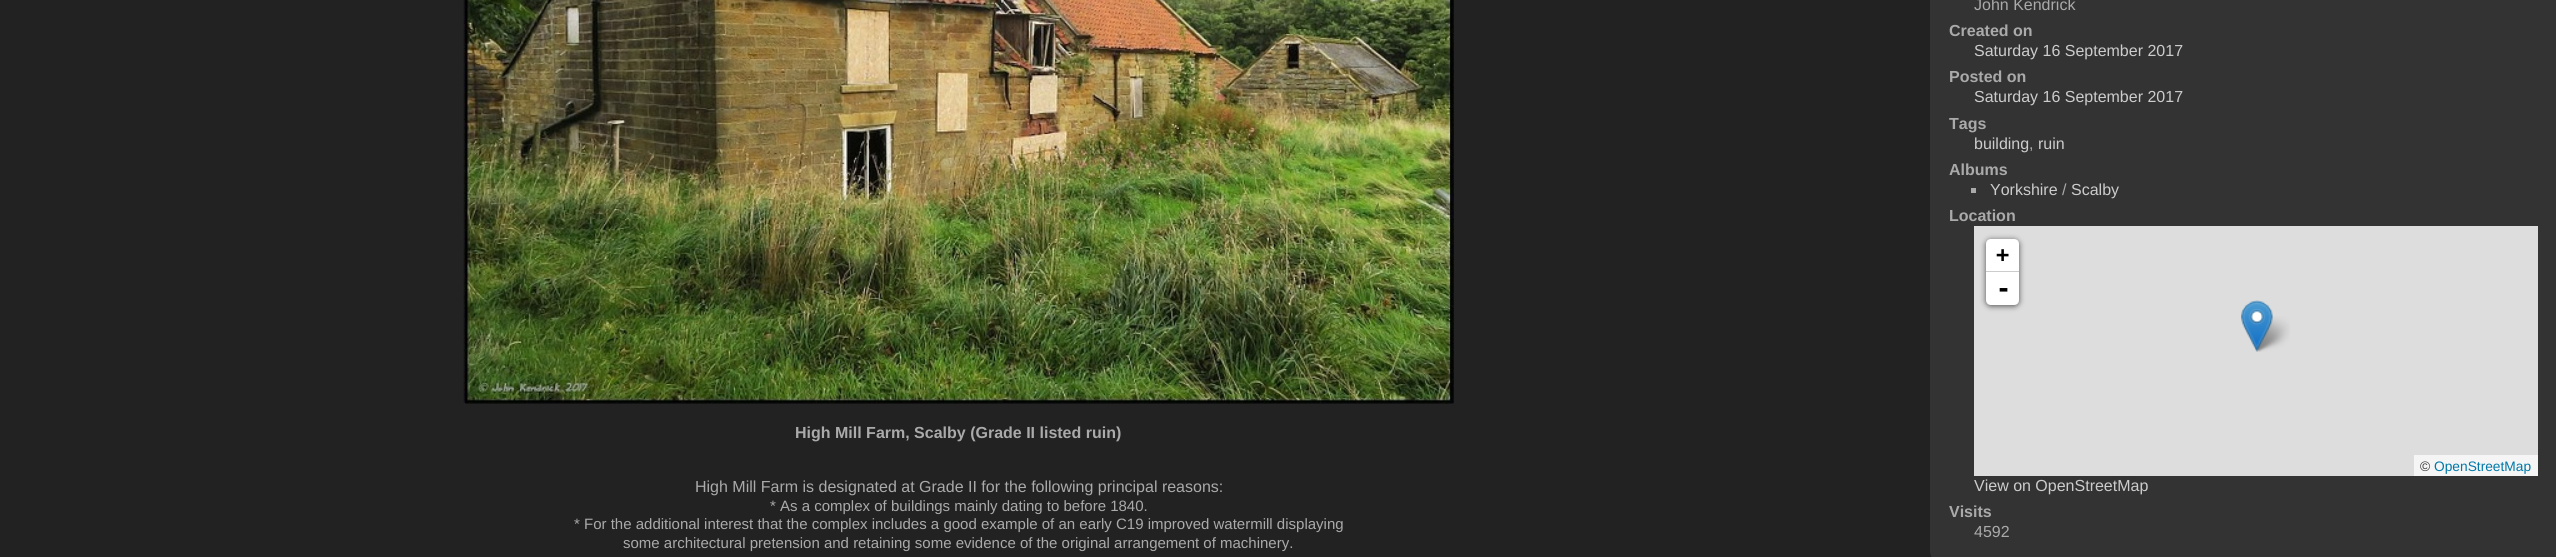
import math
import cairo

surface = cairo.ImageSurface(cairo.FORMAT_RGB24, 2556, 557)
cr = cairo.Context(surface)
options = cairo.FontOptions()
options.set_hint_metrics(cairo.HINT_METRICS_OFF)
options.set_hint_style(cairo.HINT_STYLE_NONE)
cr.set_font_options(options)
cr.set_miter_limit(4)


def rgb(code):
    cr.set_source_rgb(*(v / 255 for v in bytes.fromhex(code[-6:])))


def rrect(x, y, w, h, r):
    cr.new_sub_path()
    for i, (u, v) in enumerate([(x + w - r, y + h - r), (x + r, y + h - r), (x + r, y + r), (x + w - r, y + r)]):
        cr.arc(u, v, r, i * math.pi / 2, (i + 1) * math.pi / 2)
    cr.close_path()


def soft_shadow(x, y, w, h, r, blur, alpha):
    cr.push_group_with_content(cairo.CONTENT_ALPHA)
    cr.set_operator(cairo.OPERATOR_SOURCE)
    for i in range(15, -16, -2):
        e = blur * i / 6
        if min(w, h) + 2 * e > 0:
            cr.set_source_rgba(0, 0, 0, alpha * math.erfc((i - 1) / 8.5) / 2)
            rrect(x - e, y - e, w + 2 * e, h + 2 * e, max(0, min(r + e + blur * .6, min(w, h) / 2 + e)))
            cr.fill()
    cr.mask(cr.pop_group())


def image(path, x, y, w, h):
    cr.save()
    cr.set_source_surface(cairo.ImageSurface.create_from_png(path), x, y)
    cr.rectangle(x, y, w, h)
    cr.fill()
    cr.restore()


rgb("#222222")
cr.paint()
image("img/1.png", 463, 0, 991, 404)
rgb("#333333")
cr.new_path()
cr.move_to(1943, -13)
cr.line_to(2556, -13)
cr.line_to(2556, 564)
cr.line_to(1943, 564)
cr.curve_to(1936, 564, 1930, 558, 1930, 551)
cr.line_to(1930, 0)
cr.curve_to(1930, -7, 1936, -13, 1943, -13)
cr.close_path()
cr.fill()
rgb("#aaaaaa")
cr.rectangle(1971, 188, 5, 5)
cr.fill()
rgb("#dddddd")
cr.rectangle(1974, 226, 564, 250)
cr.fill()
rgb("#000000")
soft_shadow(1986, 240, 33, 66, 5, 3, 0.65)
rgb("#ffffff")
cr.new_path()
cr.move_to(1991, 239)
cr.line_to(2014, 239)
cr.curve_to(2017, 239, 2019, 241, 2019, 244)
cr.line_to(2019, 273)
cr.line_to(1986, 273)
cr.line_to(1986, 244)
cr.curve_to(1986, 241, 1988, 239, 1991, 239)
cr.close_path()
cr.fill()
rgb("#cccccc")
cr.rectangle(1986, 271, 33, 1)
cr.fill()
rgb("#ffffff")
cr.new_path()
cr.move_to(1986, 273)
cr.line_to(2019, 273)
cr.line_to(2019, 300)
cr.curve_to(2019, 303, 2017, 305, 2014, 305)
cr.line_to(1991, 305)
cr.curve_to(1988, 305, 1986, 303, 1986, 300)
cr.close_path()
cr.fill()
rgb("#f5f5f5")
cr.rectangle(2414, 455, 124, 21)
cr.fill()
image("img/3.png", 2252, 316, 38, 36)
image("img/2.png", 2241, 300, 32, 52)
cr.select_font_face("Liberation Sans", cairo.FONT_SLANT_NORMAL, cairo.FONT_WEIGHT_BOLD)
cr.set_font_size(16)
rgb("#aaaaaa")
cr.move_to(795, 438)
cr.show_text("High Mill Farm, Scalby (Grade II listed ruin)")
cr.select_font_face("Liberation Sans")
cr.move_to(695, 492)
cr.show_text("High Mill Farm is designated at Grade II for the following principal reasons:")
cr.set_font_size(15)
for x, y, s in [
    (770, 511, "* As a complex of buildings mainly dating to before 1840."),
    (574, 529, "* For the additional interest that the complex includes a good example of an early C19 improved watermill displaying"),
    (623, 548, "some architectural pretension and retaining some evidence of the original arrangement of machinery."),
]:
    cr.move_to(x, y)
    cr.show_text(s)
cr.set_font_size(16)
cr.move_to(1974, 10)
cr.show_text("John Kendrick")
cr.select_font_face("Liberation Sans", cairo.FONT_SLANT_NORMAL, cairo.FONT_WEIGHT_BOLD)
cr.move_to(1949, 36)
cr.show_text("Created on")
cr.select_font_face("Liberation Sans")
rgb("#cccccc")
cr.move_to(1974, 56)
cr.show_text("Saturday 16 September 2017")
cr.select_font_face("Liberation Sans", cairo.FONT_SLANT_NORMAL, cairo.FONT_WEIGHT_BOLD)
rgb("#aaaaaa")
cr.move_to(1949, 82)
cr.show_text("Posted on")
cr.select_font_face("Liberation Sans")
rgb("#cccccc")
cr.move_to(1974, 102)
cr.show_text("Saturday 16 September 2017")
cr.select_font_face("Liberation Sans", cairo.FONT_SLANT_NORMAL, cairo.FONT_WEIGHT_BOLD)
rgb("#aaaaaa")
cr.move_to(1949, 129)
cr.show_text("Tags")
cr.select_font_face("Liberation Sans")
rgb("#cccccc")
cr.move_to(1974, 149)
cr.show_text("building")
rgb("#aaaaaa")
cr.move_to(2029, 149)
cr.show_text(",")
rgb("#cccccc")
cr.move_to(2038, 149)
cr.show_text("ruin")
cr.select_font_face("Liberation Sans", cairo.FONT_SLANT_NORMAL, cairo.FONT_WEIGHT_BOLD)
rgb("#aaaaaa")
cr.move_to(1949, 175)
cr.show_text("Albums")
cr.select_font_face("Liberation Sans")
rgb("#cccccc")
cr.move_to(1990, 195)
cr.show_text("Yorkshire")
rgb("#aaaaaa")
cr.move_to(2062, 195)
cr.show_text("/")
rgb("#cccccc")
cr.move_to(2071, 195)
cr.show_text("Scalby")
cr.select_font_face("Liberation Sans", cairo.FONT_SLANT_NORMAL, cairo.FONT_WEIGHT_BOLD)
rgb("#aaaaaa")
cr.move_to(1949, 221)
cr.show_text("Location")
cr.select_font_face("DejaVu Sans Mono", cairo.FONT_SLANT_NORMAL, cairo.FONT_WEIGHT_BOLD)
cr.set_font_size(22)
rgb("#000000")
cr.move_to(1996, 262)
cr.show_text("+")
cr.set_font_size(25)
cr.move_to(1996, 297)
cr.show_text("-")
cr.select_font_face("Liberation Sans")
cr.set_font_size(13.75)
rgb("#333333")
cr.move_to(2420, 471)
cr.show_text("©")
rgb("#0078a8")
cr.move_to(2434, 471)
cr.show_text("OpenStreetMap")
cr.set_font_size(16)
rgb("#cccccc")
cr.move_to(1974, 491)
cr.show_text("View on OpenStreetMap")
cr.select_font_face("Liberation Sans", cairo.FONT_SLANT_NORMAL, cairo.FONT_WEIGHT_BOLD)
rgb("#aaaaaa")
cr.move_to(1949, 517)
cr.show_text("Visits")
cr.select_font_face("Liberation Sans")
cr.move_to(1974, 537)
cr.show_text("4592")
surface.write_to_png("page.png")
